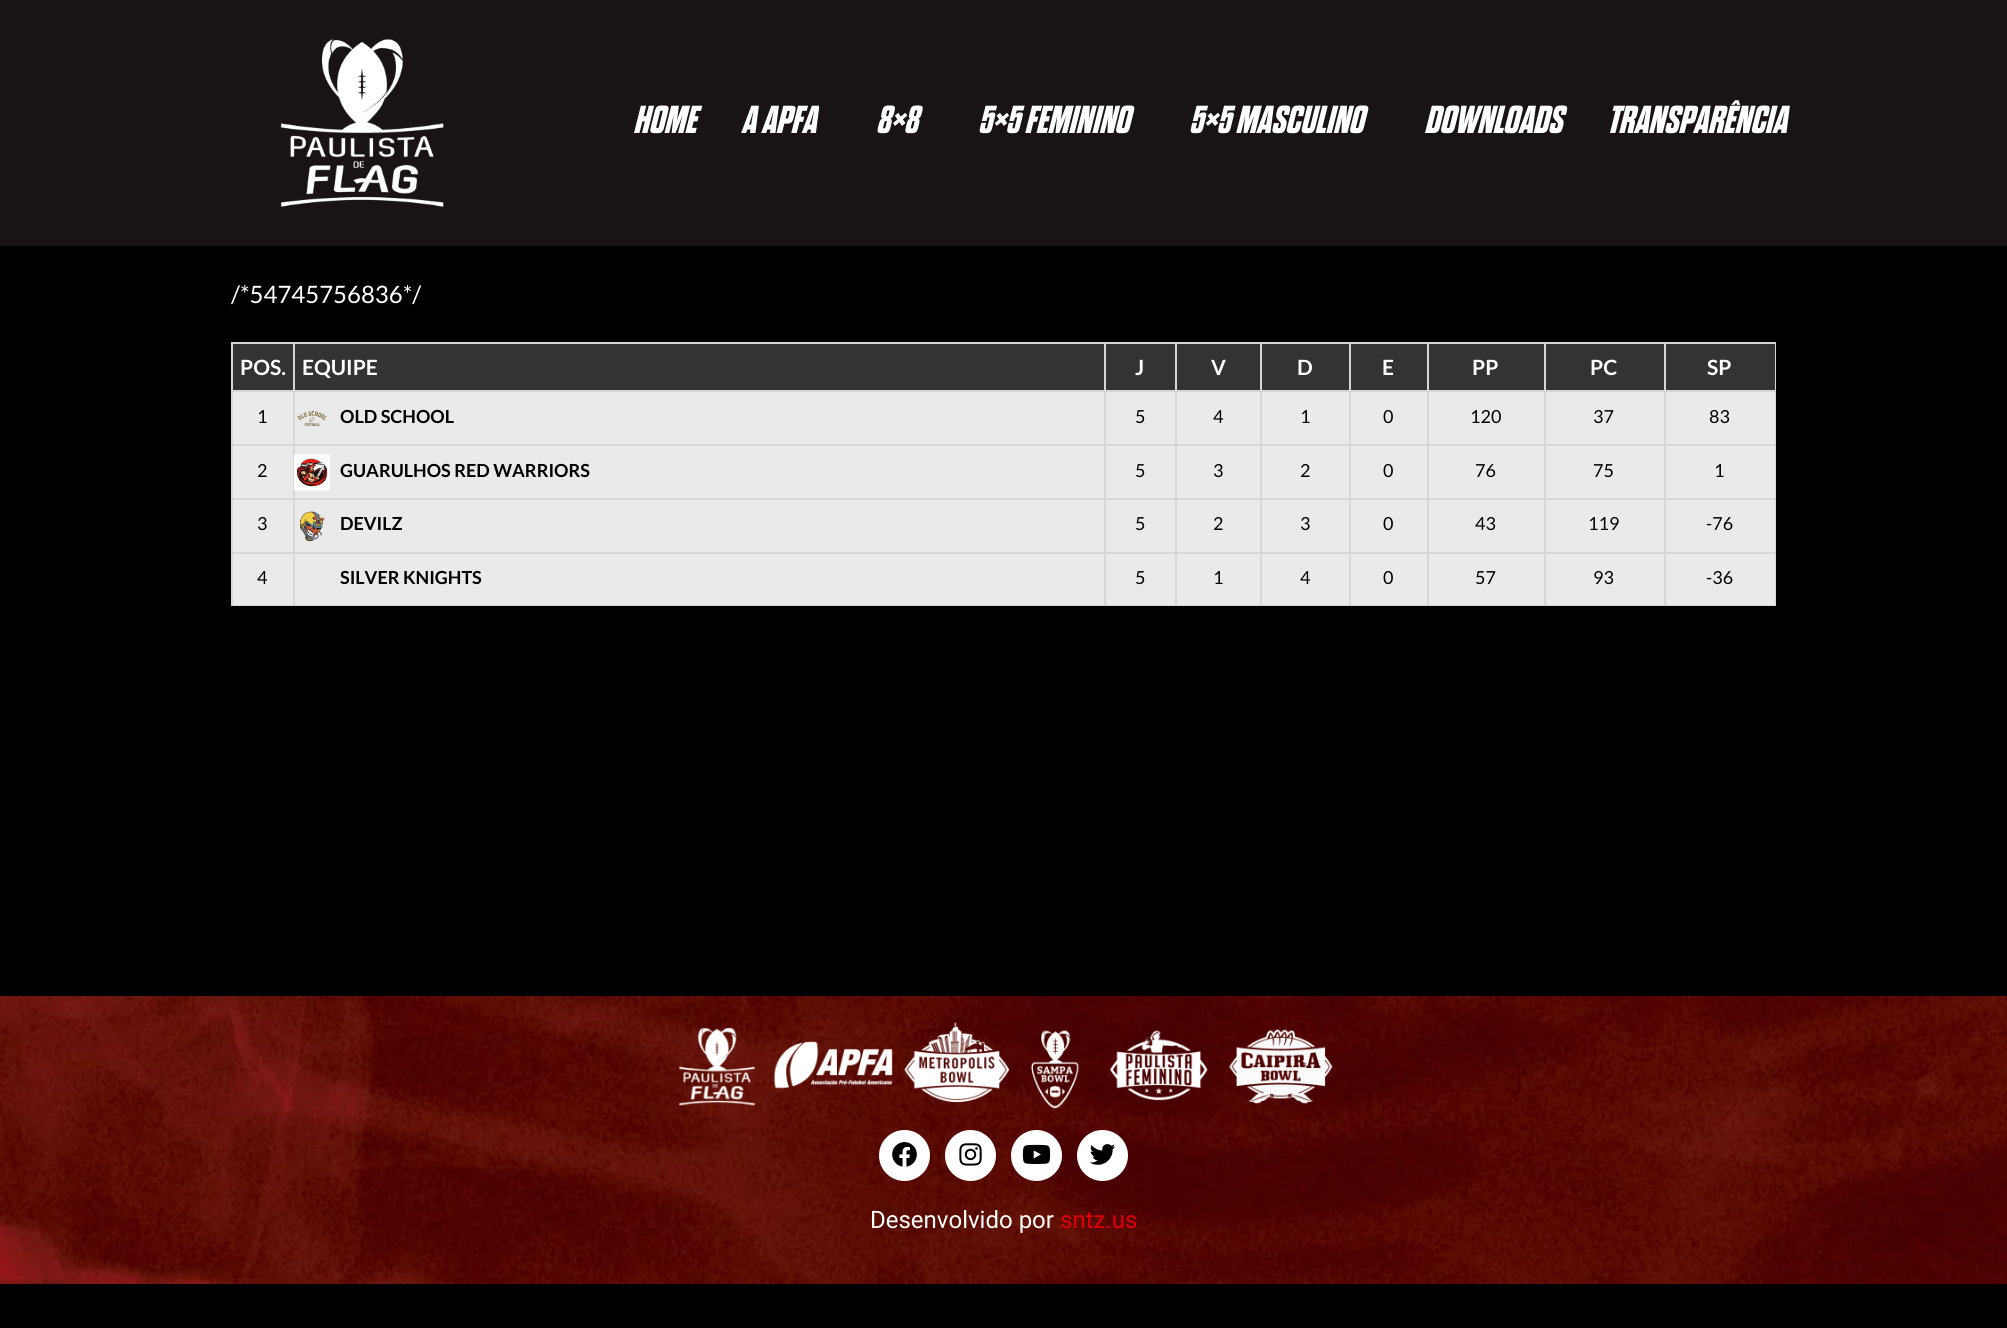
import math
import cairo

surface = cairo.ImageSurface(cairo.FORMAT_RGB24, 2007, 1328)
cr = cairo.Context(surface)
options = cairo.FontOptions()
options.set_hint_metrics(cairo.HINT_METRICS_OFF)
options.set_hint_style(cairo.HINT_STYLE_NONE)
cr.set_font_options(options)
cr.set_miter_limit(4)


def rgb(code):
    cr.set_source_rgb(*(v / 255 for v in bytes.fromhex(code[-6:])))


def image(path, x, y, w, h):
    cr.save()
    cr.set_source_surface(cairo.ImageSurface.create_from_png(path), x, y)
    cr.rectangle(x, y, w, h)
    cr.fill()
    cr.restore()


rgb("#000000")
cr.paint()
rgb("#191313")
cr.rectangle(0, 0, 2007, 246)
cr.fill()
image("img/1.png", 280, 39, 164, 168)
for x, y, w, h, color in [
    (233, 392, 1542, 213, "#eaeaea"),
    (231, 342, 1545, 2, "#d6d6d6"),
    (1775, 342, 1, 264, "#d6d6d6"),
    (231, 605, 1545, 1, "#d6d6d6"),
    (231, 342, 2, 264, "#d6d6d6"),
    (233, 344, 1542, 46, "#333333"),
    (1664, 390, 112, 2, "#d6d6d6"),
    (1664, 444, 112, 2, "#d6d6d6"),
    (1664, 498, 112, 2, "#d6d6d6"),
    (1664, 552, 112, 2, "#d6d6d6"),
    (1664, 552, 2, 54, "#d6d6d6"),
    (1544, 552, 121, 2, "#d6d6d6"),
    (1664, 498, 2, 56, "#d6d6d6"),
    (1544, 498, 121, 2, "#d6d6d6"),
    (1664, 444, 2, 56, "#d6d6d6"),
    (1544, 444, 121, 2, "#d6d6d6"),
    (1664, 390, 2, 56, "#d6d6d6"),
    (1544, 390, 121, 2, "#d6d6d6"),
    (1544, 552, 2, 54, "#d6d6d6"),
    (1427, 552, 118, 2, "#d6d6d6"),
    (1544, 498, 2, 56, "#d6d6d6"),
    (1427, 498, 118, 2, "#d6d6d6"),
    (1544, 444, 2, 56, "#d6d6d6"),
    (1427, 444, 118, 2, "#d6d6d6"),
    (1544, 390, 2, 56, "#d6d6d6"),
    (1427, 390, 118, 2, "#d6d6d6"),
    (1427, 552, 2, 54, "#d6d6d6"),
    (1349, 552, 79, 2, "#d6d6d6"),
    (1427, 498, 2, 56, "#d6d6d6"),
    (1349, 498, 79, 2, "#d6d6d6"),
    (1427, 444, 2, 56, "#d6d6d6"),
    (1349, 444, 79, 2, "#d6d6d6"),
    (1427, 390, 2, 56, "#d6d6d6"),
    (1349, 390, 79, 2, "#d6d6d6"),
    (1349, 552, 2, 54, "#d6d6d6"),
    (1260, 552, 90, 2, "#d6d6d6"),
    (1349, 498, 2, 56, "#d6d6d6"),
    (1260, 498, 90, 2, "#d6d6d6"),
    (1349, 444, 2, 56, "#d6d6d6"),
    (1260, 444, 90, 2, "#d6d6d6"),
    (1349, 390, 2, 56, "#d6d6d6"),
    (1260, 390, 90, 2, "#d6d6d6"),
    (1260, 552, 2, 54, "#d6d6d6"),
    (1175, 552, 87, 2, "#d6d6d6"),
    (1260, 498, 2, 56, "#d6d6d6"),
    (1175, 498, 87, 2, "#d6d6d6"),
    (1260, 444, 2, 56, "#d6d6d6"),
    (1175, 444, 87, 2, "#d6d6d6"),
    (1260, 390, 2, 56, "#d6d6d6"),
    (1175, 390, 87, 2, "#d6d6d6"),
    (1175, 552, 2, 54, "#d6d6d6"),
    (1104, 552, 72, 2, "#d6d6d6"),
    (1175, 498, 2, 56, "#d6d6d6"),
    (1104, 498, 72, 2, "#d6d6d6"),
    (1175, 444, 2, 56, "#d6d6d6"),
    (1104, 444, 72, 2, "#d6d6d6"),
    (1175, 390, 2, 56, "#d6d6d6"),
    (1104, 390, 72, 2, "#d6d6d6"),
    (1104, 552, 2, 54, "#d6d6d6"),
    (293, 552, 813, 2, "#d6d6d6"),
    (1104, 498, 2, 56, "#d6d6d6"),
    (293, 498, 813, 2, "#d6d6d6"),
    (1104, 444, 2, 56, "#d6d6d6"),
    (293, 444, 813, 2, "#d6d6d6"),
    (1104, 390, 2, 56, "#d6d6d6"),
    (293, 390, 813, 2, "#d6d6d6"),
    (293, 552, 2, 54, "#d6d6d6"),
    (231, 552, 63, 2, "#d6d6d6"),
    (293, 498, 2, 56, "#d6d6d6"),
    (231, 498, 63, 2, "#d6d6d6"),
    (293, 444, 2, 56, "#d6d6d6"),
    (231, 444, 63, 2, "#d6d6d6"),
    (293, 390, 2, 56, "#d6d6d6"),
    (231, 390, 63, 2, "#d6d6d6"),
    (293, 342, 2, 50, "#d6d6d6"),
    (1104, 342, 2, 50, "#d6d6d6"),
    (1175, 342, 2, 50, "#d6d6d6"),
    (1260, 342, 2, 50, "#d6d6d6"),
    (1349, 342, 2, 50, "#d6d6d6"),
    (1427, 342, 2, 50, "#d6d6d6"),
    (1544, 342, 2, 50, "#d6d6d6"),
    (1664, 342, 2, 50, "#d6d6d6"),
]:
    rgb(color)
    cr.rectangle(x, y, w, h)
    cr.fill()
image("img/2.png", 297, 411, 30, 15)
image("img/3.png", 294, 454, 36, 37)
image("img/4.png", 299, 511, 26, 30)
image("img/5.png", 0, 996, 2007, 288)
image("img/6.png", 679, 1022, 654, 87)
rgb("#ffffff")
cr.arc(904.5, 1155.5, 25.5, 0, 2 * math.pi)
cr.fill()
image("img/7.png", 892, 1142, 25, 25)
cr.arc(970.5, 1155.5, 25.5, 0, 2 * math.pi)
cr.fill()
image("img/8.png", 959, 1143, 23, 23)
cr.arc(1036.5, 1155.5, 25.5, 0, 2 * math.pi)
cr.fill()
image("img/9.png", 1022, 1144, 29, 20)
cr.arc(1102.5, 1155.5, 25.5, 0, 2 * math.pi)
cr.fill()
image("img/10.png", 1090, 1144, 26, 21)
cr.select_font_face("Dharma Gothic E", cairo.FONT_SLANT_ITALIC, cairo.FONT_WEIGHT_BOLD)
cr.set_font_size(39)
for x, y, s in [
    (633, 133, "HOME"),
    (741, 133, "A APFA"),
    (876, 133, "8×8"),
    (978, 133, "5×5 FEMININO"),
    (1189, 133, "5×5 MASCULINO"),
    (1424, 133, "DOWNLOADS"),
    (1607, 133, "TRANSPARÊNCIA"),
]:
    cr.move_to(x, y)
    cr.show_text(s)
cr.select_font_face("Lato")
cr.set_font_size(24)
cr.move_to(231, 303)
cr.show_text("/*54745756836*/")
cr.select_font_face("Lato", cairo.FONT_SLANT_NORMAL, cairo.FONT_WEIGHT_BOLD)
cr.set_font_size(21)
for x, y, s in [
    (240, 375, "POS."),
    (302, 375, "EQUIPE"),
    (1135, 375, "J"),
    (1211, 375, "V"),
    (1297, 375, "D"),
    (1382, 375, "E"),
    (1472, 375, "PP"),
    (1590, 375, "PC"),
    (1707, 375, "SP"),
]:
    cr.move_to(x, y)
    cr.show_text(s)
cr.select_font_face("Lato")
cr.set_font_size(18)
rgb("#000000")
cr.move_to(257, 423)
cr.show_text("1")
cr.select_font_face("Lato", cairo.FONT_SLANT_NORMAL, cairo.FONT_WEIGHT_BOLD)
cr.move_to(340, 423)
cr.show_text("OLD SCHOOL")
cr.select_font_face("Lato")
for x, y, s in [
    (1135, 423, "5"),
    (1213, 423, "4"),
    (1300, 423, "1"),
    (1383, 423, "0"),
    (1470, 423, "120"),
    (1593, 423, "37"),
    (1709, 423, "83"),
    (257, 477, "2"),
]:
    cr.move_to(x, y)
    cr.show_text(s)
cr.select_font_face("Lato", cairo.FONT_SLANT_NORMAL, cairo.FONT_WEIGHT_BOLD)
cr.move_to(340, 477)
cr.show_text("GUARULHOS RED WARRIORS")
cr.select_font_face("Lato")
for x, y, s in [
    (1135, 477, "5"),
    (1213, 477, "3"),
    (1300, 477, "2"),
    (1383, 477, "0"),
    (1475, 477, "76"),
    (1593, 477, "75"),
    (1714, 477, "1"),
    (257, 530, "3"),
]:
    cr.move_to(x, y)
    cr.show_text(s)
cr.select_font_face("Lato", cairo.FONT_SLANT_NORMAL, cairo.FONT_WEIGHT_BOLD)
cr.move_to(340, 530)
cr.show_text("DEVILZ")
cr.select_font_face("Lato")
for x, y, s in [
    (1135, 530, "5"),
    (1213, 530, "2"),
    (1300, 530, "3"),
    (1383, 530, "0"),
    (1475, 530, "43"),
    (1588, 530, "119"),
    (1706, 530, "-76"),
    (257, 584, "4"),
]:
    cr.move_to(x, y)
    cr.show_text(s)
cr.select_font_face("Lato", cairo.FONT_SLANT_NORMAL, cairo.FONT_WEIGHT_BOLD)
cr.move_to(340, 584)
cr.show_text("SILVER KNIGHTS")
cr.select_font_face("Lato")
for x, y, s in [
    (1135, 584, "5"),
    (1213, 584, "1"),
    (1300, 584, "4"),
    (1383, 584, "0"),
    (1475, 584, "57"),
    (1593, 584, "93"),
    (1706, 584, "-36"),
]:
    cr.move_to(x, y)
    cr.show_text(s)
cr.select_font_face("Roboto")
cr.set_font_size(24)
rgb("#ffffff")
cr.move_to(870, 1228)
cr.show_text("Desenvolvido por")
rgb("#e0000b")
cr.move_to(1060, 1228)
cr.show_text("sntz.us")
surface.write_to_png("page.png")
